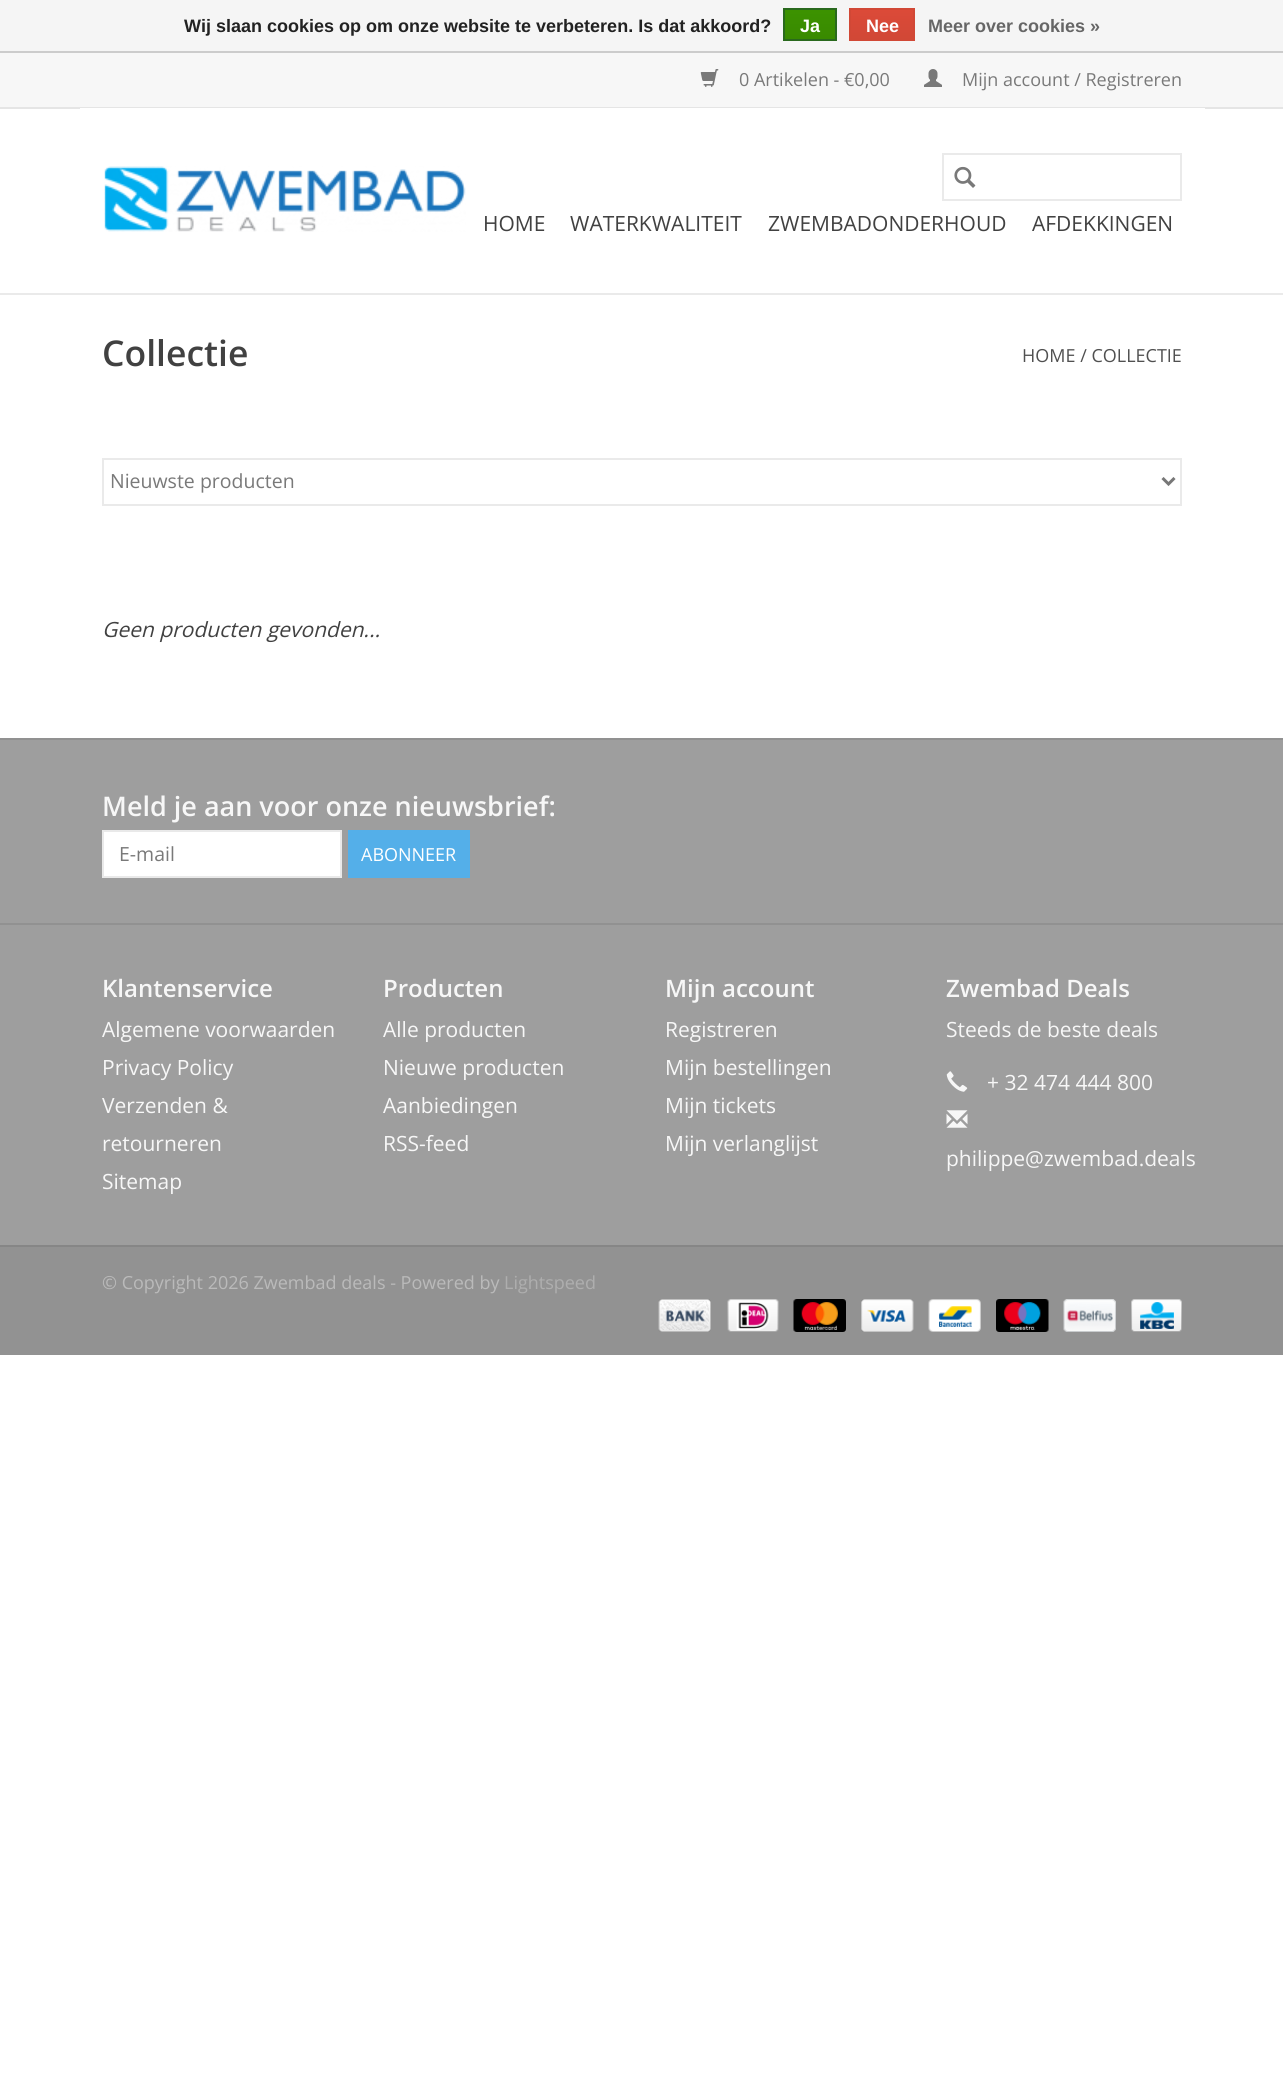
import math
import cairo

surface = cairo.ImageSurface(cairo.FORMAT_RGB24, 1283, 2100)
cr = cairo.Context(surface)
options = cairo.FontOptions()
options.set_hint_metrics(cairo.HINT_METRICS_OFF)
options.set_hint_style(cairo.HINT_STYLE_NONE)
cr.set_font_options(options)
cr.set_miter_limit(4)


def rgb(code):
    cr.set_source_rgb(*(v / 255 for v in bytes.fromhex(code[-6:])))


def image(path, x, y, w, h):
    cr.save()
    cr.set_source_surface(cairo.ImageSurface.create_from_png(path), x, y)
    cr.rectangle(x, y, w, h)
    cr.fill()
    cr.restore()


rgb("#ffffff")
cr.paint()
rgb("#f5f5f5")
cr.rectangle(0, 0, 1283, 51)
cr.fill()
rgb("#cccccc")
cr.rectangle(0, 51, 1283, 2)
cr.fill()
gradient = cairo.LinearGradient(810, 9, 810, 39)
gradient.add_color_stop_rgba(0, 0.235, 0.576, 0, 1)
gradient.add_color_stop_rgba(1, 0.224, 0.541, 0, 1)
cr.set_source(gradient)
cr.rectangle(785, 10, 50, 29)
cr.fill()
cr.rectangle(784, 9, 52, 31)
rgb("#29691d")
cr.stroke()
gradient = cairo.LinearGradient(882, 9, 882, 39)
gradient.add_color_stop_rgba(0, 0.863, 0.29, 0.22, 1)
gradient.add_color_stop_rgba(1, 0.82, 0.282, 0.212, 1)
cr.set_source(gradient)
cr.rectangle(851, 10, 62, 29)
cr.fill()
cr.rectangle(850, 9, 64, 31)
rgb("#d14836")
cr.stroke()
for x, y, w, h, color in [
    (0, 293, 1283, 2, "#eaeaea"),
    (0, 53, 1283, 54, "#f7f7f7"),
    (0, 107, 1283, 2, "#e5e5e5"),
]:
    rgb(color)
    cr.rectangle(x, y, w, h)
    cr.fill()
image("img/1.png", 700, 69, 19, 18)
image("img/2.png", 924, 69, 18, 18)
rgb("#ffffff")
cr.rectangle(80, 108, 1125, 1)
cr.fill()
image("img/3.png", 104, 166, 362, 66)
cr.rectangle(943, 154, 238, 46)
rgb("#eaeaea")
cr.stroke()
image("img/4.png", 954, 166, 22, 22)
cr.rectangle(103, 459, 1078, 46)
cr.stroke()
cr.new_path()
cr.move_to(1162.5, 478)
cr.line_to(1168.5, 484)
cr.line_to(1174.5, 478)
rgb("#777777")
cr.set_line_width(3)
cr.stroke()
rgb("#9e9e9e")
cr.rectangle(0, 740, 1283, 505)
cr.fill()
rgb("#919191")
cr.rectangle(0, 738, 1283, 2)
cr.fill()
rgb("#ffffff")
cr.rectangle(103, 831, 238, 46)
cr.fill_preserve()
rgb("#e9e9e9")
cr.set_line_width(2)
cr.stroke()
rgb("#54afe9")
cr.rectangle(348, 830, 122, 48)
cr.fill()
rgb("#919191")
cr.rectangle(0, 923, 1283, 2)
cr.fill()
image("img/5.png", 946, 1071, 22, 21)
image("img/6.png", 946, 1110, 22, 18)
rgb("#868686")
cr.rectangle(0, 1245, 1283, 2)
cr.fill()
rgb("#929292")
cr.rectangle(0, 1247, 1283, 108)
cr.fill()
image("img/7.png", 658, 1299, 53, 33)
image("img/8.png", 727, 1299, 52, 33)
image("img/9.png", 793, 1299, 53, 33)
image("img/10.png", 861, 1299, 53, 33)
image("img/11.png", 928, 1299, 53, 33)
image("img/12.png", 996, 1299, 53, 33)
image("img/13.png", 1063, 1299, 53, 33)
image("img/14.png", 1131, 1299, 51, 33)
cr.select_font_face("Liberation Sans", cairo.FONT_SLANT_NORMAL, cairo.FONT_WEIGHT_BOLD)
cr.set_font_size(18)
rgb("#222222")
cr.move_to(184, 32)
cr.show_text("Wij slaan cookies op om onze website te verbeteren. Is dat akkoord?")
rgb("#ffffff")
cr.move_to(800, 32)
cr.show_text("Ja")
cr.move_to(866, 32)
cr.show_text("Nee")
rgb("#666666")
cr.move_to(928, 32)
cr.show_text("Meer over cookies »")
cr.select_font_face("Open Sans")
rgb("#797979")
cr.move_to(739, 86)
cr.show_text("0 Artikelen - €0,00")
cr.move_to(962, 86)
cr.show_text("Mijn account / Registreren")
cr.set_font_size(21)
rgb("#414141")
for x, y, s in [
    (483, 231, "HOME"),
    (570, 231, "WATERKWALITEIT"),
    (768, 231, "ZWEMBADONDERHOUD"),
    (1032, 231, "AFDEKKINGEN"),
]:
    cr.move_to(x, y)
    cr.show_text(s)
cr.select_font_face("Open Sans SemiBold")
cr.set_font_size(35.5)
cr.move_to(102, 366)
cr.show_text("Collectie")
cr.select_font_face("Open Sans")
cr.set_font_size(18)
rgb("#505050")
cr.move_to(1022, 362)
cr.show_text("HOME / COLLECTIE")
cr.set_font_size(19.5)
rgb("#797979")
cr.move_to(110, 488)
cr.show_text("Nieuwste producten")
cr.select_font_face("Open Sans", cairo.FONT_SLANT_ITALIC)
cr.set_font_size(21)
rgb("#414141")
cr.move_to(102, 637)
cr.show_text("Geen producten gevonden...")
cr.select_font_face("Open Sans SemiBold")
cr.set_font_size(27)
rgb("#f7f7f7")
cr.move_to(102, 816)
cr.show_text("Meld je aan voor onze nieuwsbrief:")
cr.select_font_face("Open Sans")
cr.set_font_size(19.5)
rgb("#797979")
cr.move_to(119, 861)
cr.show_text("E-mail")
cr.set_font_size(18)
rgb("#ffffff")
cr.move_to(361, 861)
cr.show_text("ABONNEER")
cr.select_font_face("Open Sans SemiBold")
cr.set_font_size(24)
rgb("#f7f7f7")
cr.move_to(102, 997)
cr.show_text("Klantenservice")
cr.select_font_face("Open Sans")
cr.set_font_size(21)
for x, y, s in [
    (102, 1037, "Algemene voorwaarden"),
    (102, 1075, "Privacy Policy"),
    (102, 1113, "Verzenden &"),
    (102, 1151, "retourneren"),
    (102, 1189, "Sitemap"),
]:
    cr.move_to(x, y)
    cr.show_text(s)
cr.select_font_face("Open Sans SemiBold")
cr.set_font_size(24)
cr.move_to(383, 997)
cr.show_text("Producten")
cr.select_font_face("Open Sans")
cr.set_font_size(21)
for x, y, s in [
    (383, 1037, "Alle producten"),
    (383, 1075, "Nieuwe producten"),
    (383, 1113, "Aanbiedingen"),
    (383, 1151, "RSS-feed"),
]:
    cr.move_to(x, y)
    cr.show_text(s)
cr.select_font_face("Open Sans SemiBold")
cr.set_font_size(24)
cr.move_to(665, 997)
cr.show_text("Mijn account")
cr.select_font_face("Open Sans")
cr.set_font_size(21)
for x, y, s in [
    (665, 1037, "Registreren"),
    (665, 1075, "Mijn bestellingen"),
    (665, 1113, "Mijn tickets"),
    (665, 1151, "Mijn verlanglijst"),
]:
    cr.move_to(x, y)
    cr.show_text(s)
cr.select_font_face("Open Sans SemiBold")
cr.set_font_size(24)
cr.move_to(946, 997)
cr.show_text("Zwembad Deals")
cr.select_font_face("Open Sans")
cr.set_font_size(21)
for x, y, s in [
    (946, 1037, "Steeds de beste deals"),
    (987, 1090, "+ 32 474 444 800"),
    (946, 1166, "philippe@zwembad.deals"),
]:
    cr.move_to(x, y)
    cr.show_text(s)
cr.set_font_size(18)
rgb("#bababa")
cr.move_to(102, 1289)
cr.show_text("© Copyright 2026 Zwembad deals - Powered by")
rgb("#aeaeae")
cr.move_to(504, 1289)
cr.show_text("Lightspeed")
surface.write_to_png("page.png")
